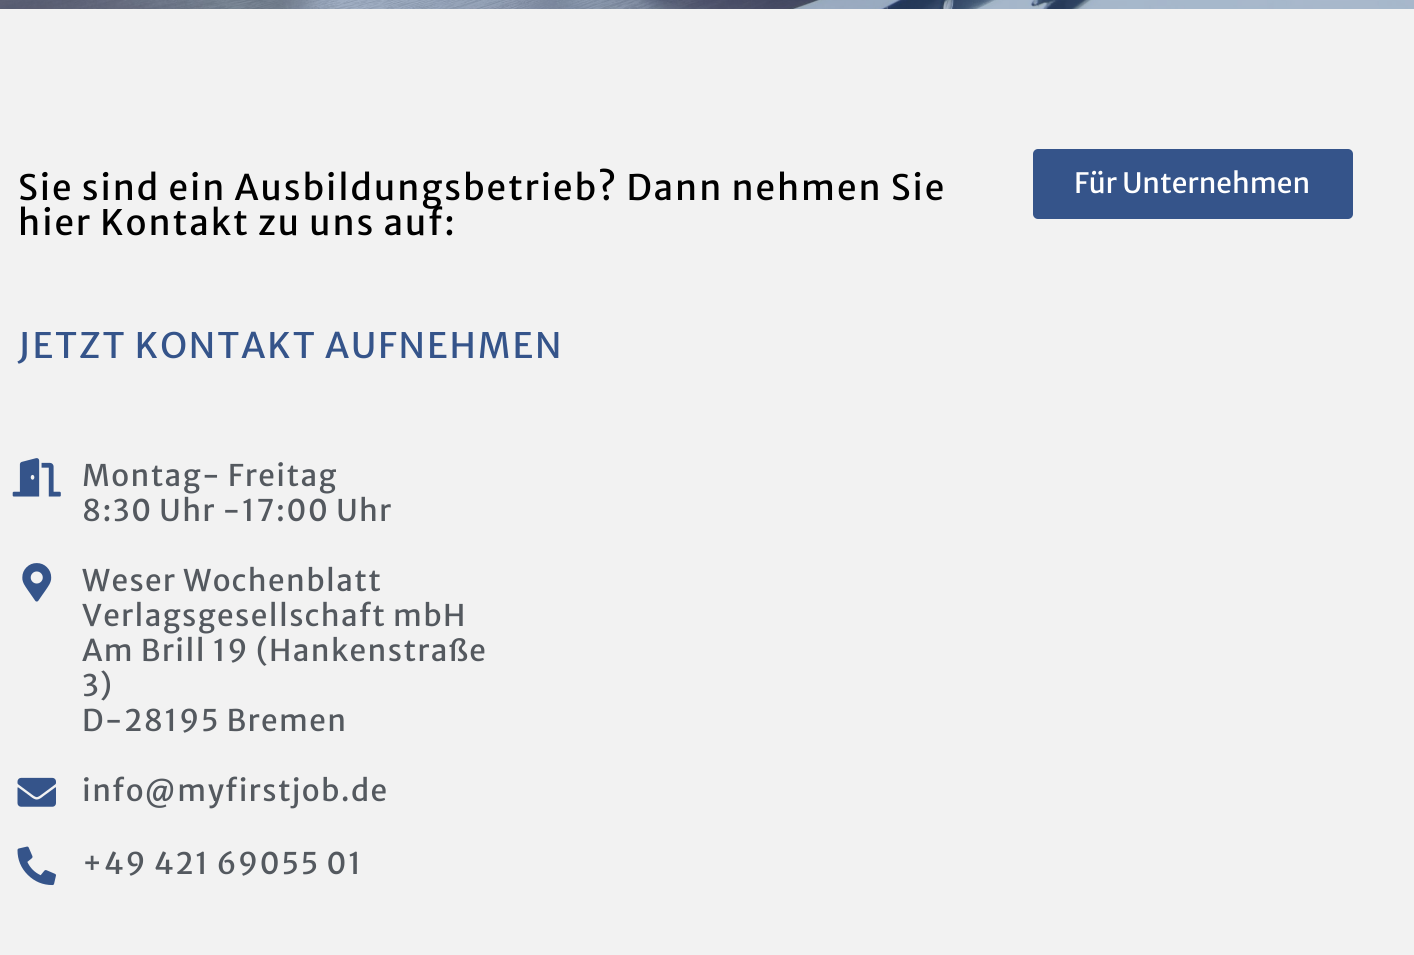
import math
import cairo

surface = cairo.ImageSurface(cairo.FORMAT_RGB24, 1414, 955)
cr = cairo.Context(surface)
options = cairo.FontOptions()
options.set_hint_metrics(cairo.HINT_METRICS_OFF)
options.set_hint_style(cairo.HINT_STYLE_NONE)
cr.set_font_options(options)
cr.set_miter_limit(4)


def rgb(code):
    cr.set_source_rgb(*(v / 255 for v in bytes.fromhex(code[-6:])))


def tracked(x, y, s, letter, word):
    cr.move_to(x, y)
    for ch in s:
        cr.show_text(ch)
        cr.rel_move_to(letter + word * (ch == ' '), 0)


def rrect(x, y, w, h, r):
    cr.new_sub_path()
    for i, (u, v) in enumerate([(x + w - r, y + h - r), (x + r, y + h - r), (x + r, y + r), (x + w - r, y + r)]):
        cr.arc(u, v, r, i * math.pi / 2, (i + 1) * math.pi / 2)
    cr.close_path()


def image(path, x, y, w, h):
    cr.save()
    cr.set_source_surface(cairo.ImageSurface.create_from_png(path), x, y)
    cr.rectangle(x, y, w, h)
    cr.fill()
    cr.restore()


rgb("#f2f2f2")
cr.paint()
image("img/1.png", 0, 0, 1414, 9)
rgb("#35548a")
rrect(1033, 149, 320, 70, 5)
cr.fill()
image("img/2.png", 12, 458, 49, 39)
image("img/3.png", 22, 563, 30, 39)
image("img/4.png", 17, 777, 39, 30)
image("img/5.png", 17, 846, 39, 40)
cr.select_font_face("Merriweather Sans")
cr.set_font_size(35)
rgb("#000000")
tracked(18, 200, "Sie sind ein Ausbildungsbetrieb? Dann nehmen Sie", 1.95, 0)
tracked(18, 235, "hier Kontakt zu uns auf:", 1.95, 0)
cr.set_font_size(28)
rgb("#ffffff")
cr.move_to(1074, 193)
cr.show_text("Für Unternehmen")
cr.set_font_size(35)
rgb("#35548a")
tracked(18, 358, "JETZT KONTAKT AUFNEHMEN", 1.95, 0)
cr.set_font_size(29.75)
rgb("#54595f")
for x, y, s in [
    (82, 486, "Montag- Freitag"),
    (82, 521, "8:30 Uhr -17:00 Uhr"),
    (82, 591, "Weser Wochenblatt"),
    (82, 626, "Verlagsgesellschaft mbH"),
    (82, 661, "Am Brill 19 (Hankenstraße"),
    (82, 696, "3)"),
    (82, 731, "D-28195 Bremen"),
    (82, 801, "info@myfirstjob.de"),
    (82, 874, "+49 421 69055 01"),
]:
    tracked(x, y, s, 1.4, 0)
surface.write_to_png("page.png")
